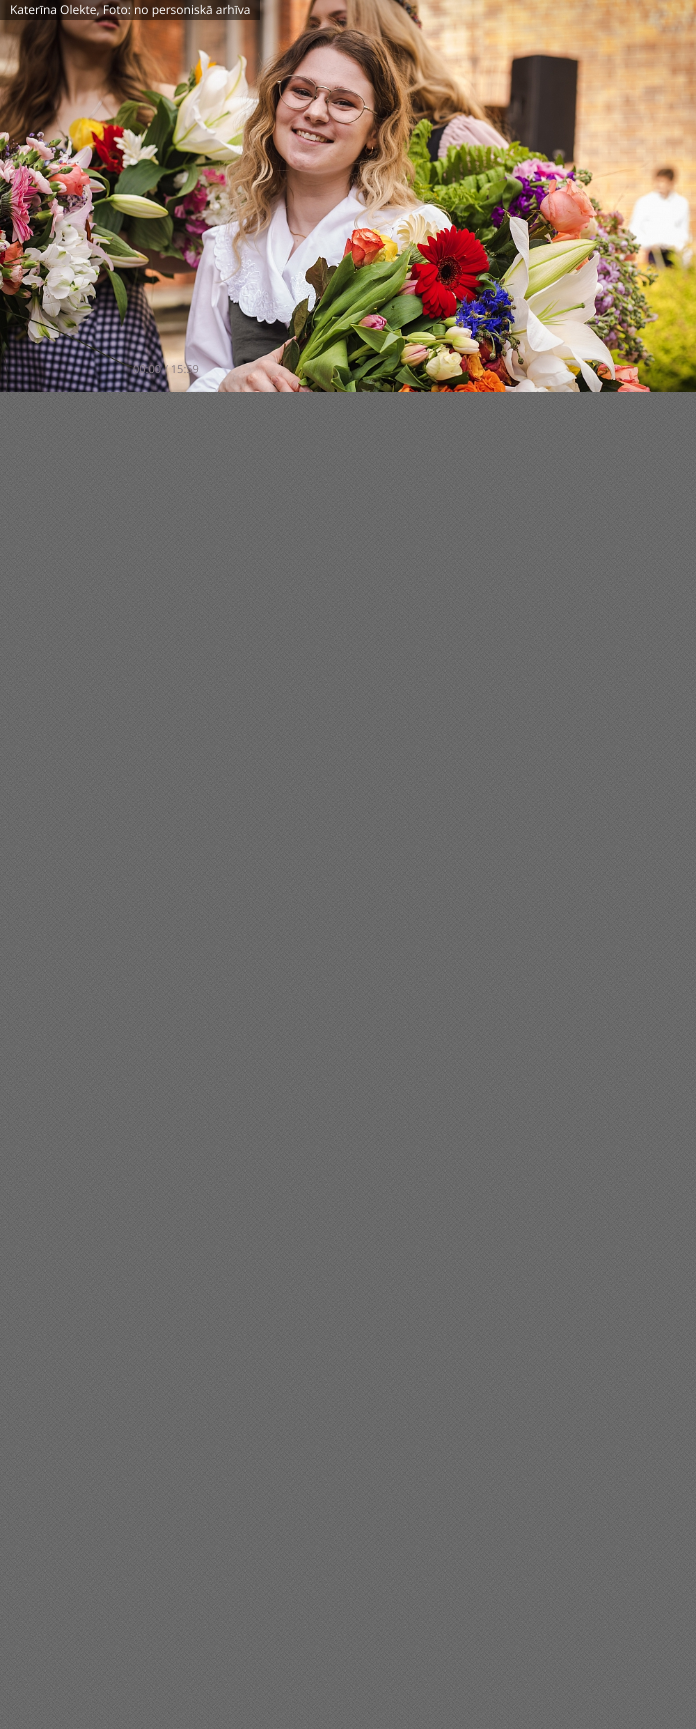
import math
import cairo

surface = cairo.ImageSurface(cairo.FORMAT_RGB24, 696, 1729)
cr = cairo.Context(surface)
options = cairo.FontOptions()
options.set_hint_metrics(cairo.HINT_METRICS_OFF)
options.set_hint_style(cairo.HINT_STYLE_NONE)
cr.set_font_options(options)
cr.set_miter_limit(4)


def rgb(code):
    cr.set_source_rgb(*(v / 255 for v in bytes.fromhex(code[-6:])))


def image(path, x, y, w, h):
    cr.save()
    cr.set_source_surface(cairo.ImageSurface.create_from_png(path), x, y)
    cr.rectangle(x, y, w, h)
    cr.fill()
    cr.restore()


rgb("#ffffff")
cr.paint()
image("img/1.png", 0, 392, 696, 1337)
image("img/2.png", 0, 0, 696, 392)
cr.set_source_rgba(0, 0, 0, 0.5)
cr.rectangle(0, 0, 260, 20)
cr.fill()
cr.select_font_face("Open Sans")
cr.set_font_size(12)
rgb("#ffffff")
cr.move_to(10, 14)
cr.show_text("Katerīna Olekte, Foto: no personiskā arhīva")
cr.set_font_size(11)
rgb("#887d84")
cr.move_to(133, 373)
cr.show_text("00:00 / 15:59")
surface.write_to_png("page.png")
